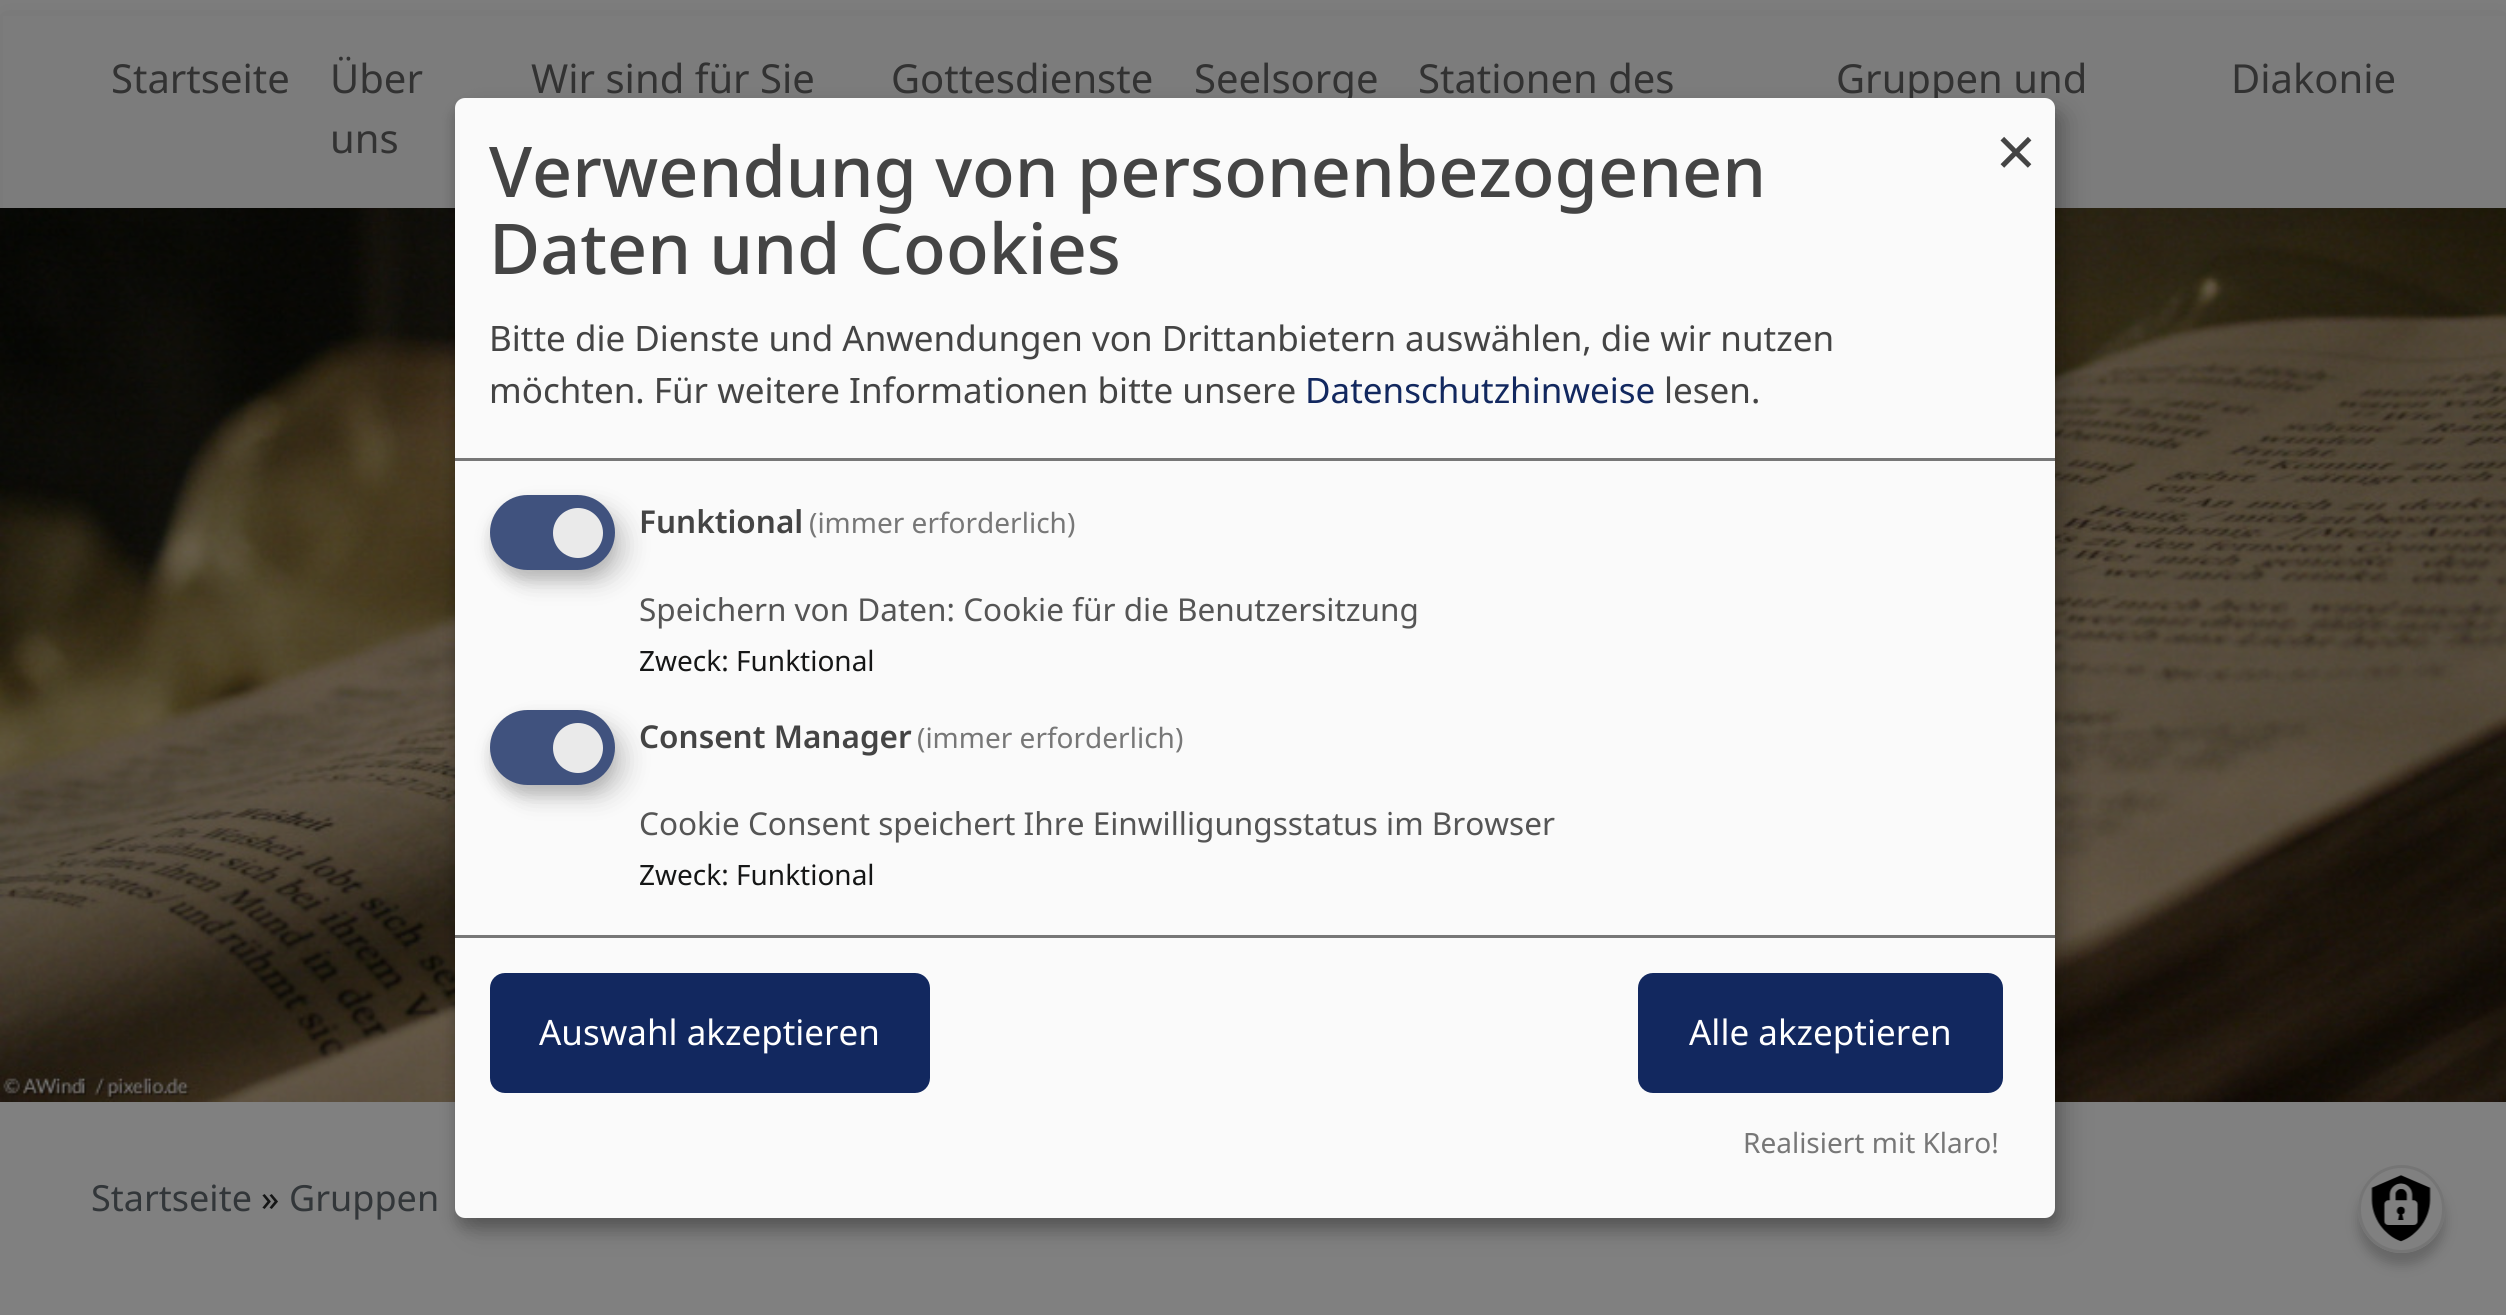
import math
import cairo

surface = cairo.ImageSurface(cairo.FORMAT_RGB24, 2506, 1315)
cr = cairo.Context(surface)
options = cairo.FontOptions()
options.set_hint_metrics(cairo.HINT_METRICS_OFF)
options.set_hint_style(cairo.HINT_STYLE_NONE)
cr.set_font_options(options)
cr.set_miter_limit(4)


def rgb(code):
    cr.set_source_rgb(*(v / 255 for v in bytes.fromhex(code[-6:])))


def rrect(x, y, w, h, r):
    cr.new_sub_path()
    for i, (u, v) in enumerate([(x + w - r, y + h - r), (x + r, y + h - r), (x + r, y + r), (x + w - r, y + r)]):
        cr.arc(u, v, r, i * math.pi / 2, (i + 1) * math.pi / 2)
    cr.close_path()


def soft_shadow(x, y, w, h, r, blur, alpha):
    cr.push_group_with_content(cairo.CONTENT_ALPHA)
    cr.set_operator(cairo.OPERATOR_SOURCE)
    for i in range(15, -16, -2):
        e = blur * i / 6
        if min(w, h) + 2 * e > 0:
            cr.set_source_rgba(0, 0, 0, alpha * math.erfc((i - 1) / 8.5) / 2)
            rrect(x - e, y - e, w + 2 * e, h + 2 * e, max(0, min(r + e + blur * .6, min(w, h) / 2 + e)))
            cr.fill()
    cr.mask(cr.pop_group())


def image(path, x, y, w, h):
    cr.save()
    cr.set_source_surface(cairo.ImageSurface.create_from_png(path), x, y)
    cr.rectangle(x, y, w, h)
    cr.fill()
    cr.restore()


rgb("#808080")
cr.paint()
image("img/1.png", 0, 208, 2506, 894)
rgb("#000000")
soft_shadow(0, 13, 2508, 200, 0, 19, 0.09)
rgb("#7c7c7c")
cr.rectangle(3, 16, 2502, 192)
cr.fill()
rgb("#000000")
soft_shadow(468, 110, 1600, 1120, 10, 12.5, 0.19)
soft_shadow(455, 108, 1600, 1120, 10, 7.5, 0.2)
soft_shadow(2358, 1178, 87, 87, 43.5, 6, 0.2)
rgb("#808080")
rrect(2358, 1165, 87, 88, 43.5)
cr.fill()
image("img/2.png", 2371, 1175, 60, 67)
rrect(2359.5, 1166.5, 84, 85, 42)
rgb("#757575")
cr.set_line_width(3)
cr.stroke()
cr.select_font_face("Noto Sans")
cr.set_font_size(40)
rgb("#323232")
for x, y, s in [
    (111, 93, "Startseite"),
    (330, 93, "Über"),
    (330, 153, "uns"),
    (531, 93, "Wir sind für Sie"),
    (891, 93, "Gottesdienste"),
    (1194, 93, "Seelsorge"),
    (1418, 93, "Stationen des"),
    (1836, 93, "Gruppen und"),
    (2231, 93, "Diakonie"),
]:
    cr.move_to(x, y)
    cr.show_text(s)
cr.set_font_size(36)
rgb("#323639")
cr.move_to(91, 1211)
cr.show_text("Startseite")
rgb("#151616")
cr.move_to(261, 1211)
cr.show_text("»")
rgb("#323639")
cr.move_to(289, 1211)
cr.show_text("Gruppen")
rgb("#fafafa")
rrect(455, 98, 1600, 1120, 10)
cr.fill()
rgb("#777777")
cr.rectangle(455, 458, 1600, 3)
cr.fill()
cr.select_font_face("Noto Sans Medium")
cr.set_font_size(70)
rgb("#444444")
cr.move_to(489, 197)
cr.show_text("Verwendung von personenbezogenen")
cr.move_to(489, 274)
cr.show_text("Daten und Cookies")
cr.select_font_face("Noto Sans")
cr.set_font_size(35)
cr.move_to(489, 351)
cr.show_text("Bitte die Dienste und Anwendungen von Drittanbietern auswählen, die wir nutzen")
cr.move_to(489, 403)
cr.show_text("möchten. Für weitere Informationen bitte unsere")
rgb("#12285f")
cr.move_to(1305, 403)
cr.show_text("Datenschutzhinweise")
rgb("#444444")
cr.move_to(1664, 403)
cr.show_text("lesen.")
cr.set_font_size(70)
cr.move_to(1996, 177)
cr.show_text("×")
rgb("#000000")
soft_shadow(503, 508, 125, 75, 37.5, 12.5, 0.15)
rgb("#323232")
soft_shadow(490, 505, 125, 75, 37.5, 7.5, 0.2)
rgb("#40527e")
rrect(490, 495, 125, 75, 37.5)
cr.fill()
rgb("#eaeaea")
cr.arc(578, 533, 25, 0, 2 * math.pi)
cr.fill()
cr.select_font_face("Noto Sans SemiBold")
cr.set_font_size(31.5)
rgb("#444444")
cr.move_to(639, 533)
cr.show_text("Funktional")
cr.select_font_face("Noto Sans")
cr.set_font_size(28)
rgb("#777777")
cr.move_to(809, 533)
cr.show_text("(immer erforderlich)")
cr.set_font_size(31.5)
rgb("#555555")
cr.move_to(639, 621)
cr.show_text("Speichern von Daten: Cookie für die Benutzersitzung")
cr.set_font_size(28)
rgb("#151616")
cr.move_to(639, 671)
cr.show_text("Zweck: Funktional")
rgb("#000000")
soft_shadow(503, 723, 125, 75, 37.5, 12.5, 0.15)
rgb("#323232")
soft_shadow(490, 720, 125, 75, 37.5, 7.5, 0.2)
rgb("#40527e")
rrect(490, 710, 125, 75, 37.5)
cr.fill()
rgb("#eaeaea")
cr.arc(578, 748, 25, 0, 2 * math.pi)
cr.fill()
cr.select_font_face("Noto Sans SemiBold")
cr.set_font_size(31.5)
rgb("#444444")
cr.move_to(639, 748)
cr.show_text("Consent Manager")
cr.select_font_face("Noto Sans")
cr.set_font_size(28)
rgb("#777777")
cr.move_to(917, 748)
cr.show_text("(immer erforderlich)")
cr.set_font_size(31.5)
rgb("#555555")
cr.move_to(639, 835)
cr.show_text("Cookie Consent speichert Ihre Einwilligungsstatus im Browser")
cr.set_font_size(28)
rgb("#151616")
cr.move_to(639, 885)
cr.show_text("Zweck: Funktional")
rgb("#777777")
cr.rectangle(455, 935, 1600, 3)
cr.fill()
rgb("#12285f")
rrect(494, 977, 432, 112, 11)
cr.fill_preserve()
cr.set_line_width(8)
cr.stroke()
cr.set_font_size(35)
rgb("#ffffff")
cr.move_to(539, 1045)
cr.show_text("Auswahl akzeptieren")
rgb("#12285f")
rrect(1642, 977, 357, 112, 11)
cr.fill_preserve()
cr.stroke()
rgb("#ffffff")
cr.move_to(1689, 1045)
cr.show_text("Alle akzeptieren")
cr.set_font_size(28)
rgb("#777777")
cr.move_to(1743, 1153)
cr.show_text("Realisiert mit Klaro!")
surface.write_to_png("page.png")
